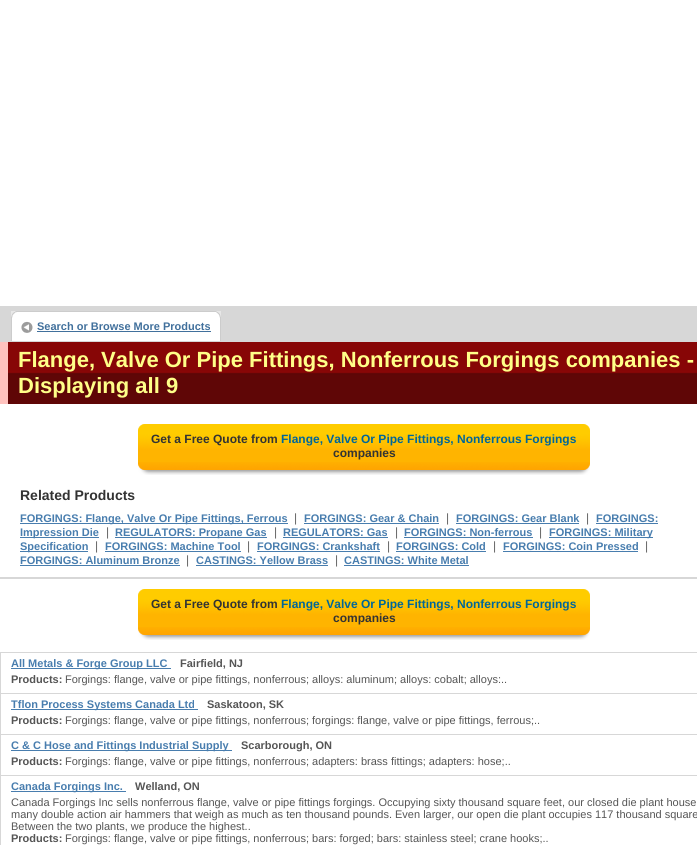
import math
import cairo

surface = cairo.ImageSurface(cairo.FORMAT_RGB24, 697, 845)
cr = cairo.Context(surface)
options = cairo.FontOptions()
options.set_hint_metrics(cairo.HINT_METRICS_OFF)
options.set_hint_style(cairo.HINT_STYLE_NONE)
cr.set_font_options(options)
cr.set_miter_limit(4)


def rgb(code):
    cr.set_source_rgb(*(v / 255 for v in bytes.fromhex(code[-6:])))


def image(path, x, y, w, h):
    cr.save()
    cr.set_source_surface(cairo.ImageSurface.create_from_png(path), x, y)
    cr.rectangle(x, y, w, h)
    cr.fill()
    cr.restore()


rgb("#ffffff")
cr.paint()
rgb("#d7d7d7")
cr.rectangle(0, 306, 697, 36)
cr.fill()
image("img/1.png", 11, 311, 6, 30)
image("img/2.png", 17, 311, 204, 30)
image("img/3.png", 21, 321, 12, 12)
rgb("#41709c")
cr.rectangle(37, 331, 174, 1)
cr.fill()
image("img/4.png", 8, 342, 689, 62)
rgb("#ffc2be")
cr.rectangle(0, 342, 8, 62)
cr.fill()
image("img/5.png", 138, 424, 452, 38)
image("img/6.png", 138, 462, 452, 13)
for x, y, w, h, color in [
    (20, 523, 268, 1, "#487dae"),
    (304, 523, 135, 1, "#487dae"),
    (456, 523, 123, 1, "#487dae"),
    (596, 523, 62, 1, "#487dae"),
    (20, 537, 79, 1, "#487dae"),
    (115, 537, 152, 1, "#487dae"),
    (283, 537, 105, 1, "#487dae"),
    (404, 537, 129, 1, "#487dae"),
    (549, 537, 104, 1, "#487dae"),
    (20, 551, 68, 1, "#487dae"),
    (105, 551, 136, 1, "#487dae"),
    (257, 551, 123, 1, "#487dae"),
    (396, 551, 90, 1, "#487dae"),
    (503, 551, 135, 1, "#487dae"),
    (20, 565, 160, 1, "#487dae"),
    (196, 565, 132, 1, "#487dae"),
    (344, 565, 125, 1, "#487dae"),
    (0, 577, 697, 2, "#d7d7d7"),
]:
    rgb(color)
    cr.rectangle(x, y, w, h)
    cr.fill()
image("img/5.png", 138, 589, 452, 38)
image("img/6.png", 138, 627, 452, 13)
cr.rectangle(0.5, 652.5, 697, 41)
cr.set_line_width(1)
cr.stroke()
for x, y, w, h, color in [
    (11, 668, 160, 1, "#487dae"),
    (0, 734, 697, 1, "#d7d7d7"),
    (0, 694, 1, 41, "#d7d7d7"),
    (11, 709, 187, 1, "#487dae"),
    (0, 775, 697, 1, "#d7d7d7"),
    (0, 735, 1, 110, "#d7d7d7"),
    (11, 750, 221, 1, "#487dae"),
    (11, 791, 115, 1, "#487dae"),
]:
    rgb(color)
    cr.rectangle(x, y, w, h)
    cr.fill()
cr.select_font_face("Liberation Sans", cairo.FONT_SLANT_NORMAL, cairo.FONT_WEIGHT_BOLD)
cr.set_font_size(11)
rgb("#41709c")
cr.move_to(37, 330)
cr.show_text("Search or Browse More Products")
cr.set_font_size(22)
rgb("#ffff88")
cr.move_to(18, 367)
cr.show_text("Flange, Valve Or Pipe Fittings, Nonferrous Forgings companies -")
cr.move_to(18, 393)
cr.show_text("Displaying all 9")
cr.set_font_size(12)
rgb("#333333")
cr.move_to(151, 443)
cr.show_text("Get a Free Quote from")
rgb("#006699")
cr.move_to(281, 443)
cr.show_text("Flange, Valve Or Pipe Fittings, Nonferrous Forgings")
rgb("#333333")
cr.move_to(333, 457)
cr.show_text("companies")
cr.set_font_size(14)
cr.move_to(20, 500)
cr.show_text("Related Products")
cr.set_font_size(11)
rgb("#487dae")
cr.move_to(20, 522)
cr.show_text("FORGINGS: Flange, Valve Or Pipe Fittings, Ferrous")
cr.select_font_face("Liberation Sans")
cr.set_font_size(12)
rgb("#626262")
cr.move_to(294, 522)
cr.show_text("|")
cr.select_font_face("Liberation Sans", cairo.FONT_SLANT_NORMAL, cairo.FONT_WEIGHT_BOLD)
cr.set_font_size(11)
rgb("#487dae")
cr.move_to(304, 522)
cr.show_text("FORGINGS: Gear & Chain")
cr.select_font_face("Liberation Sans")
cr.set_font_size(12)
rgb("#626262")
cr.move_to(446, 522)
cr.show_text("|")
cr.select_font_face("Liberation Sans", cairo.FONT_SLANT_NORMAL, cairo.FONT_WEIGHT_BOLD)
cr.set_font_size(11)
rgb("#487dae")
cr.move_to(456, 522)
cr.show_text("FORGINGS: Gear Blank")
cr.select_font_face("Liberation Sans")
cr.set_font_size(12)
rgb("#626262")
cr.move_to(586, 522)
cr.show_text("|")
cr.select_font_face("Liberation Sans", cairo.FONT_SLANT_NORMAL, cairo.FONT_WEIGHT_BOLD)
cr.set_font_size(11)
rgb("#487dae")
cr.move_to(596, 522)
cr.show_text("FORGINGS:")
cr.move_to(20, 536)
cr.show_text("Impression Die")
cr.select_font_face("Liberation Sans")
cr.set_font_size(12)
rgb("#626262")
cr.move_to(106, 536)
cr.show_text("|")
cr.select_font_face("Liberation Sans", cairo.FONT_SLANT_NORMAL, cairo.FONT_WEIGHT_BOLD)
cr.set_font_size(11)
rgb("#487dae")
cr.move_to(115, 536)
cr.show_text("REGULATORS: Propane Gas")
cr.select_font_face("Liberation Sans")
cr.set_font_size(12)
rgb("#626262")
cr.move_to(274, 536)
cr.show_text("|")
cr.select_font_face("Liberation Sans", cairo.FONT_SLANT_NORMAL, cairo.FONT_WEIGHT_BOLD)
cr.set_font_size(11)
rgb("#487dae")
cr.move_to(283, 536)
cr.show_text("REGULATORS: Gas")
cr.select_font_face("Liberation Sans")
cr.set_font_size(12)
rgb("#626262")
cr.move_to(395, 536)
cr.show_text("|")
cr.select_font_face("Liberation Sans", cairo.FONT_SLANT_NORMAL, cairo.FONT_WEIGHT_BOLD)
cr.set_font_size(11)
rgb("#487dae")
cr.move_to(404, 536)
cr.show_text("FORGINGS: Non-ferrous")
cr.select_font_face("Liberation Sans")
cr.set_font_size(12)
rgb("#626262")
cr.move_to(539, 536)
cr.show_text("|")
cr.select_font_face("Liberation Sans", cairo.FONT_SLANT_NORMAL, cairo.FONT_WEIGHT_BOLD)
cr.set_font_size(11)
rgb("#487dae")
cr.move_to(549, 536)
cr.show_text("FORGINGS: Military")
cr.move_to(20, 550)
cr.show_text("Specification")
cr.select_font_face("Liberation Sans")
cr.set_font_size(12)
rgb("#626262")
cr.move_to(95, 550)
cr.show_text("|")
cr.select_font_face("Liberation Sans", cairo.FONT_SLANT_NORMAL, cairo.FONT_WEIGHT_BOLD)
cr.set_font_size(11)
rgb("#487dae")
cr.move_to(105, 550)
cr.show_text("FORGINGS: Machine Tool")
cr.select_font_face("Liberation Sans")
cr.set_font_size(12)
rgb("#626262")
cr.move_to(247, 550)
cr.show_text("|")
cr.select_font_face("Liberation Sans", cairo.FONT_SLANT_NORMAL, cairo.FONT_WEIGHT_BOLD)
cr.set_font_size(11)
rgb("#487dae")
cr.move_to(257, 550)
cr.show_text("FORGINGS: Crankshaft")
cr.select_font_face("Liberation Sans")
cr.set_font_size(12)
rgb("#626262")
cr.move_to(387, 550)
cr.show_text("|")
cr.select_font_face("Liberation Sans", cairo.FONT_SLANT_NORMAL, cairo.FONT_WEIGHT_BOLD)
cr.set_font_size(11)
rgb("#487dae")
cr.move_to(396, 550)
cr.show_text("FORGINGS: Cold")
cr.select_font_face("Liberation Sans")
cr.set_font_size(12)
rgb("#626262")
cr.move_to(493, 550)
cr.show_text("|")
cr.select_font_face("Liberation Sans", cairo.FONT_SLANT_NORMAL, cairo.FONT_WEIGHT_BOLD)
cr.set_font_size(11)
rgb("#487dae")
cr.move_to(503, 550)
cr.show_text("FORGINGS: Coin Pressed")
cr.select_font_face("Liberation Sans")
cr.set_font_size(12)
rgb("#626262")
cr.move_to(645, 550)
cr.show_text("|")
cr.select_font_face("Liberation Sans", cairo.FONT_SLANT_NORMAL, cairo.FONT_WEIGHT_BOLD)
cr.set_font_size(11)
rgb("#487dae")
cr.move_to(20, 564)
cr.show_text("FORGINGS: Aluminum Bronze")
cr.select_font_face("Liberation Sans")
cr.set_font_size(12)
rgb("#626262")
cr.move_to(186, 564)
cr.show_text("|")
cr.select_font_face("Liberation Sans", cairo.FONT_SLANT_NORMAL, cairo.FONT_WEIGHT_BOLD)
cr.set_font_size(11)
rgb("#487dae")
cr.move_to(196, 564)
cr.show_text("CASTINGS: Yellow Brass")
cr.select_font_face("Liberation Sans")
cr.set_font_size(12)
rgb("#626262")
cr.move_to(335, 564)
cr.show_text("|")
cr.select_font_face("Liberation Sans", cairo.FONT_SLANT_NORMAL, cairo.FONT_WEIGHT_BOLD)
cr.set_font_size(11)
rgb("#487dae")
cr.move_to(344, 564)
cr.show_text("CASTINGS: White Metal")
cr.set_font_size(12)
rgb("#333333")
cr.move_to(151, 608)
cr.show_text("Get a Free Quote from")
rgb("#006699")
cr.move_to(281, 608)
cr.show_text("Flange, Valve Or Pipe Fittings, Nonferrous Forgings")
rgb("#333333")
cr.move_to(333, 622)
cr.show_text("companies")
cr.set_font_size(11)
rgb("#487dae")
cr.move_to(11, 667)
cr.show_text("All Metals & Forge Group LLC")
rgb("#555555")
cr.move_to(180, 667)
cr.show_text("Fairfield, NJ")
cr.move_to(11, 683)
cr.show_text("Products:")
cr.select_font_face("Liberation Sans")
cr.move_to(65, 683)
cr.show_text("Forgings: flange, valve or pipe fittings, nonferrous; alloys: aluminum; alloys: cobalt; alloys:..")
cr.select_font_face("Liberation Sans", cairo.FONT_SLANT_NORMAL, cairo.FONT_WEIGHT_BOLD)
rgb("#487dae")
cr.move_to(11, 708)
cr.show_text("Tflon Process Systems Canada Ltd")
rgb("#555555")
cr.move_to(207, 708)
cr.show_text("Saskatoon, SK")
cr.move_to(11, 724)
cr.show_text("Products:")
cr.select_font_face("Liberation Sans")
cr.move_to(65, 724)
cr.show_text("Forgings: flange, valve or pipe fittings, nonferrous; forgings: flange, valve or pipe fittings, ferrous;..")
cr.select_font_face("Liberation Sans", cairo.FONT_SLANT_NORMAL, cairo.FONT_WEIGHT_BOLD)
rgb("#487dae")
cr.move_to(11, 749)
cr.show_text("C & C Hose and Fittings Industrial Supply")
rgb("#555555")
cr.move_to(241, 749)
cr.show_text("Scarborough, ON")
cr.move_to(11, 765)
cr.show_text("Products:")
cr.select_font_face("Liberation Sans")
cr.move_to(65, 765)
cr.show_text("Forgings: flange, valve or pipe fittings, nonferrous; adapters: brass fittings; adapters: hose;..")
cr.select_font_face("Liberation Sans", cairo.FONT_SLANT_NORMAL, cairo.FONT_WEIGHT_BOLD)
rgb("#487dae")
cr.move_to(11, 790)
cr.show_text("Canada Forgings Inc.")
rgb("#555555")
cr.move_to(135, 790)
cr.show_text("Welland, ON")
cr.select_font_face("Liberation Sans")
for x, y, s in [
    (11, 806, "Canada Forgings Inc sells nonferrous flange, valve or pipe fittings forgings. Occupying sixty thousand square feet, our closed die plant house"),
    (11, 818, "many double action air hammers that weigh as much as ten thousand pounds. Even larger, our open die plant occupies 117 thousand square"),
    (11, 830, "Between the two plants, we produce the highest.."),
]:
    cr.move_to(x, y)
    cr.show_text(s)
cr.select_font_face("Liberation Sans", cairo.FONT_SLANT_NORMAL, cairo.FONT_WEIGHT_BOLD)
cr.move_to(11, 842)
cr.show_text("Products:")
cr.select_font_face("Liberation Sans")
cr.move_to(65, 842)
cr.show_text("Forgings: flange, valve or pipe fittings, nonferrous; bars: forged; bars: stainless steel; crane hooks;..")
surface.write_to_png("page.png")
